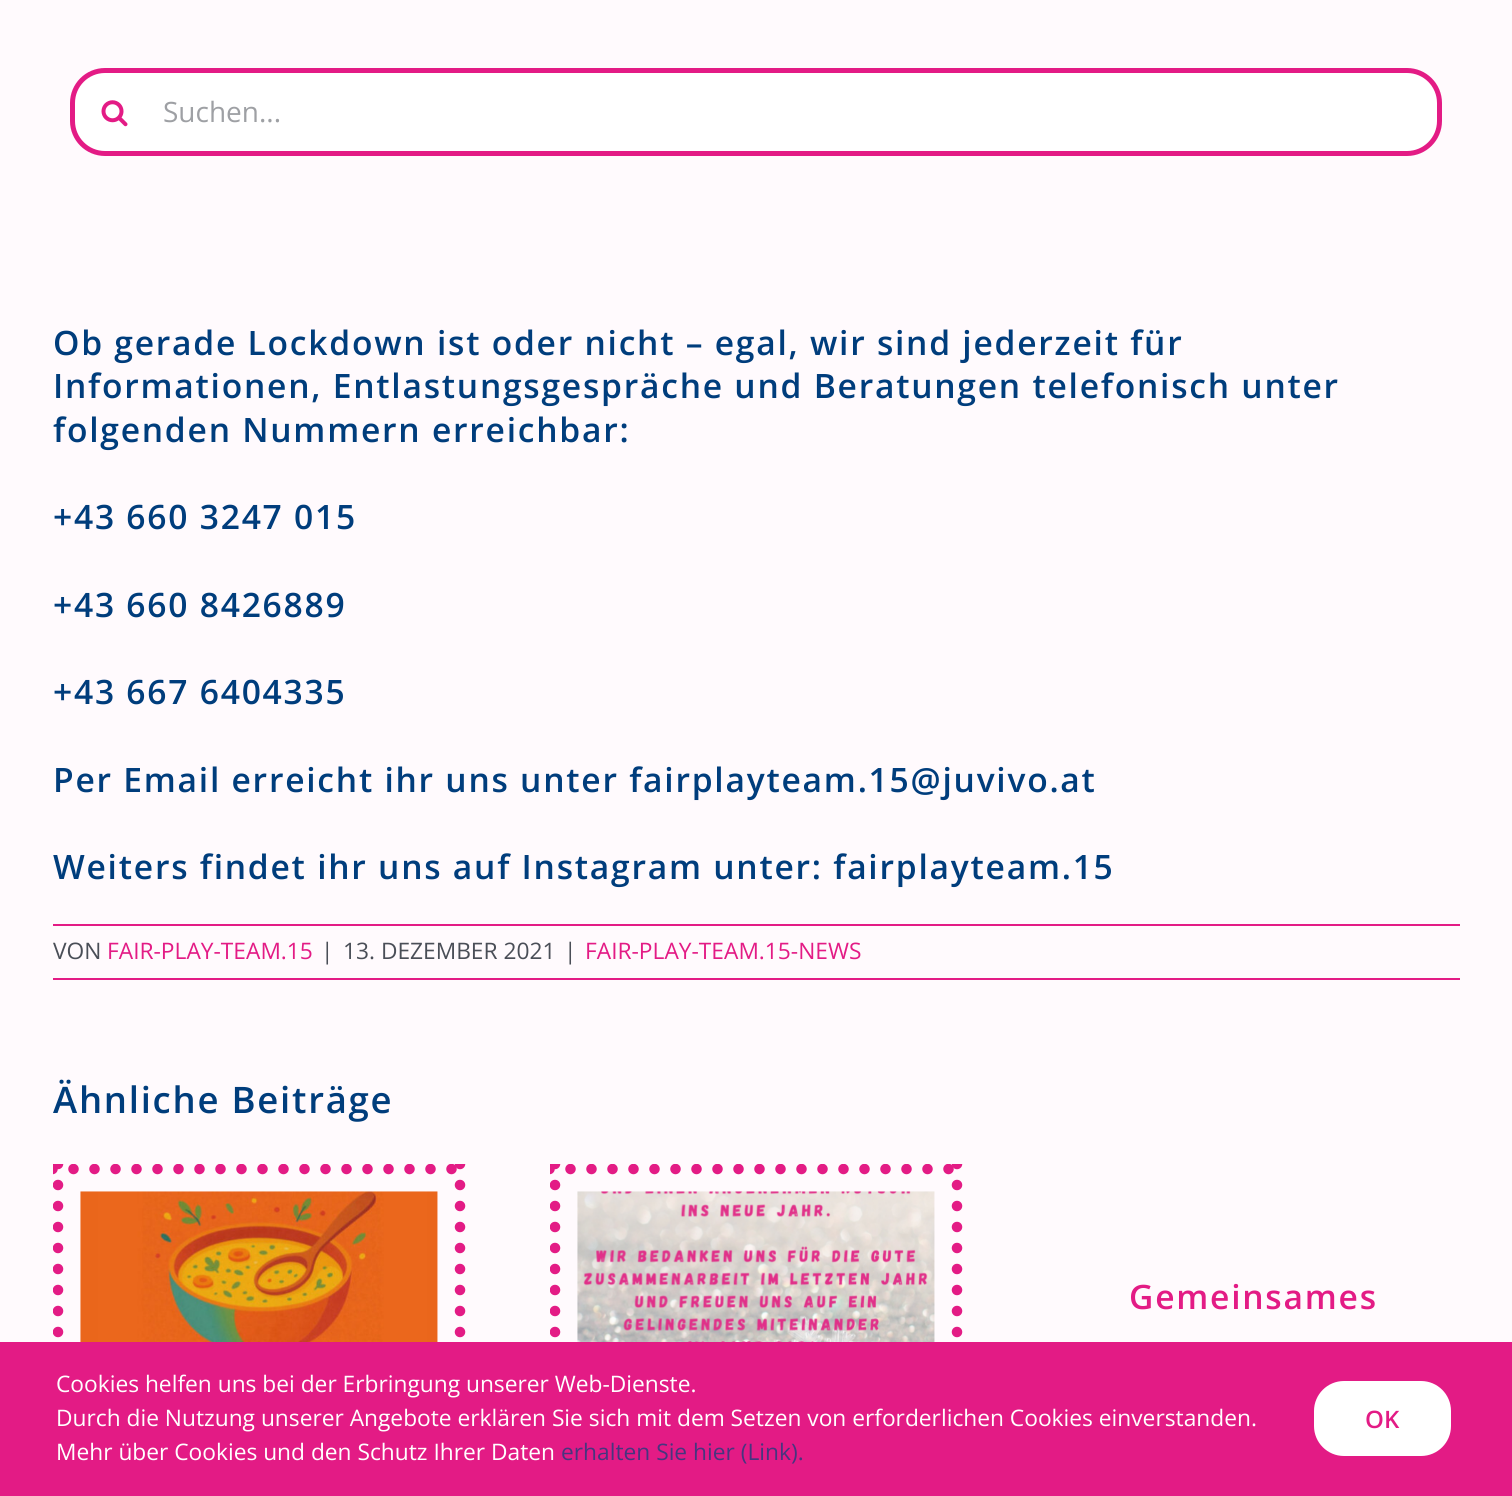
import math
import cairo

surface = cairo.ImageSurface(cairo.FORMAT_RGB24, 1512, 1496)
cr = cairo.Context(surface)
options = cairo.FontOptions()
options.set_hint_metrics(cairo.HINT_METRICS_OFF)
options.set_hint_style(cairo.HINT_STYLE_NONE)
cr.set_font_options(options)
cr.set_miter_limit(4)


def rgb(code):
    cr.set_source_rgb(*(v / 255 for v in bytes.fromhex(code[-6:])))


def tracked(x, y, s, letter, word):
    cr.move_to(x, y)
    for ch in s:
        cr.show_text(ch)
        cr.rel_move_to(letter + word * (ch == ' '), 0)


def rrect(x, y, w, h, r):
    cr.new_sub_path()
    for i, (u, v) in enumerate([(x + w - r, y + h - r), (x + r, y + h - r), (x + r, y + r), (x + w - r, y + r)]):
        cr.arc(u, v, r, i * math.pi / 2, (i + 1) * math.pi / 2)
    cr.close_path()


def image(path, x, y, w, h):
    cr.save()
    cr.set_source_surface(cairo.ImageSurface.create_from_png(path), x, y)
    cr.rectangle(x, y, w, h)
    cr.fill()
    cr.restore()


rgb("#fffafd")
cr.paint()
rgb("#ffffff")
rrect(72.5, 70.5, 1367, 83, 32.5)
cr.fill_preserve()
rgb("#e31b85")
cr.set_line_width(5)
cr.stroke()
image("img/1.png", 101, 100, 27, 27)
cr.rectangle(53, 924, 1407, 2)
cr.fill()
cr.rectangle(53, 978, 1407, 2)
cr.fill()
cr.save()
cr.rectangle(53, 1164, 413, 329)
cr.clip()
cr.new_path()
cr.move_to(52.5, 1169)
cr.line_to(465.5, 1169)
cr.set_line_width(10.5)
cr.set_line_cap(cairo.LINE_CAP_ROUND)
cr.set_dash([0, 21])
cr.stroke()
cr.new_path()
cr.move_to(58, 1164)
cr.line_to(58, 1493)
cr.stroke()
cr.restore()
image("img/2.png", 80, 1191, 358, 151)
cr.save()
cr.rectangle(53, 1164, 413, 329)
cr.clip()
cr.new_path()
cr.move_to(460, 1164)
cr.line_to(460, 1493)
cr.set_line_width(10.5)
cr.set_line_cap(cairo.LINE_CAP_ROUND)
cr.set_dash([0, 21])
cr.stroke()
cr.restore()
cr.save()
cr.rectangle(550, 1164, 413, 329)
cr.clip()
cr.new_path()
cr.move_to(549.5, 1169)
cr.line_to(962.5, 1169)
cr.set_line_width(10.5)
cr.set_line_cap(cairo.LINE_CAP_ROUND)
cr.set_dash([0, 21])
cr.stroke()
cr.new_path()
cr.move_to(555, 1164)
cr.line_to(555, 1493)
cr.stroke()
cr.restore()
image("img/3.png", 577, 1191, 358, 151)
cr.save()
cr.rectangle(550, 1164, 413, 329)
cr.clip()
cr.new_path()
cr.move_to(957, 1164)
cr.line_to(957, 1493)
cr.set_line_width(10.5)
cr.set_line_cap(cairo.LINE_CAP_ROUND)
cr.set_dash([0, 21])
cr.stroke()
cr.restore()
cr.rectangle(0, 1342, 1512, 154)
cr.fill()
rgb("#ffffff")
rrect(1311.5, 1378.5, 142, 80, 32.5)
cr.fill_preserve()
rgb("#e31b85")
cr.stroke()
cr.select_font_face("Open Sans")
cr.set_font_size(28)
rgb("#9ea0a4")
cr.move_to(163, 122)
cr.show_text("Suchen...")
cr.select_font_face("Open Sans SemiBold")
cr.set_font_size(33.6)
rgb("#003d7c")
for x, y, s in [
    (53, 355, "Ob gerade Lockdown ist oder nicht – egal, wir sind jederzeit für"),
    (53, 398, "Informationen, Entlastungsgespräche und Beratungen telefonisch unter"),
    (53, 442, "folgenden Nummern erreichbar:"),
    (53, 529, "+43 660 3247 015"),
    (53, 617, "+43 660 8426889"),
    (53, 704, "+43 667 6404335"),
    (53, 792, "Per Email erreicht ihr uns unter fairplayteam.15@juvivo.at"),
    (53, 879, "Weiters findet ihr uns auf Instagram unter: fairplayteam.15"),
]:
    tracked(x, y, s, 1.75, 0)
cr.select_font_face("Open Sans")
cr.set_font_size(22.75)
rgb("#4a4e57")
cr.move_to(53, 959)
cr.show_text("VON")
rgb("#e31b85")
cr.move_to(107, 959)
cr.show_text("FAIR-PLAY-TEAM.15")
rgb("#4a4e57")
for x, y, s in [
    (321, 959, "|"),
    (343, 959, "13. DEZEMBER 2021"),
    (564, 959, "|"),
]:
    cr.move_to(x, y)
    cr.show_text(s)
rgb("#e31b85")
cr.move_to(585, 959)
cr.show_text("FAIR-PLAY-TEAM.15-NEWS")
cr.select_font_face("Open Sans SemiBold")
cr.set_font_size(36.5)
rgb("#003d7c")
tracked(53, 1113, "Ähnliche Beiträge", 1.75, 0)
cr.set_font_size(33.6)
rgb("#e31b85")
tracked(1129, 1309, "Gemeinsames", 1.75, 0)
cr.select_font_face("Open Sans")
cr.set_font_size(22.75)
rgb("#ffffff")
for x, y, s in [
    (56, 1392, "Cookies helfen uns bei der Erbringung unserer Web-Dienste."),
    (56, 1426, "Durch die Nutzung unserer Angebote erklären Sie sich mit dem Setzen von erforderlichen Cookies einverstanden."),
    (56, 1460, "Mehr über Cookies und den Schutz Ihrer Daten"),
]:
    cr.move_to(x, y)
    cr.show_text(s)
rgb("#47357f")
cr.move_to(561, 1460)
cr.show_text("erhalten Sie hier (Link).")
cr.select_font_face("Open Sans SemiBold")
cr.set_font_size(24)
rgb("#e31b85")
cr.move_to(1365, 1428)
cr.show_text("OK")
surface.write_to_png("page.png")
